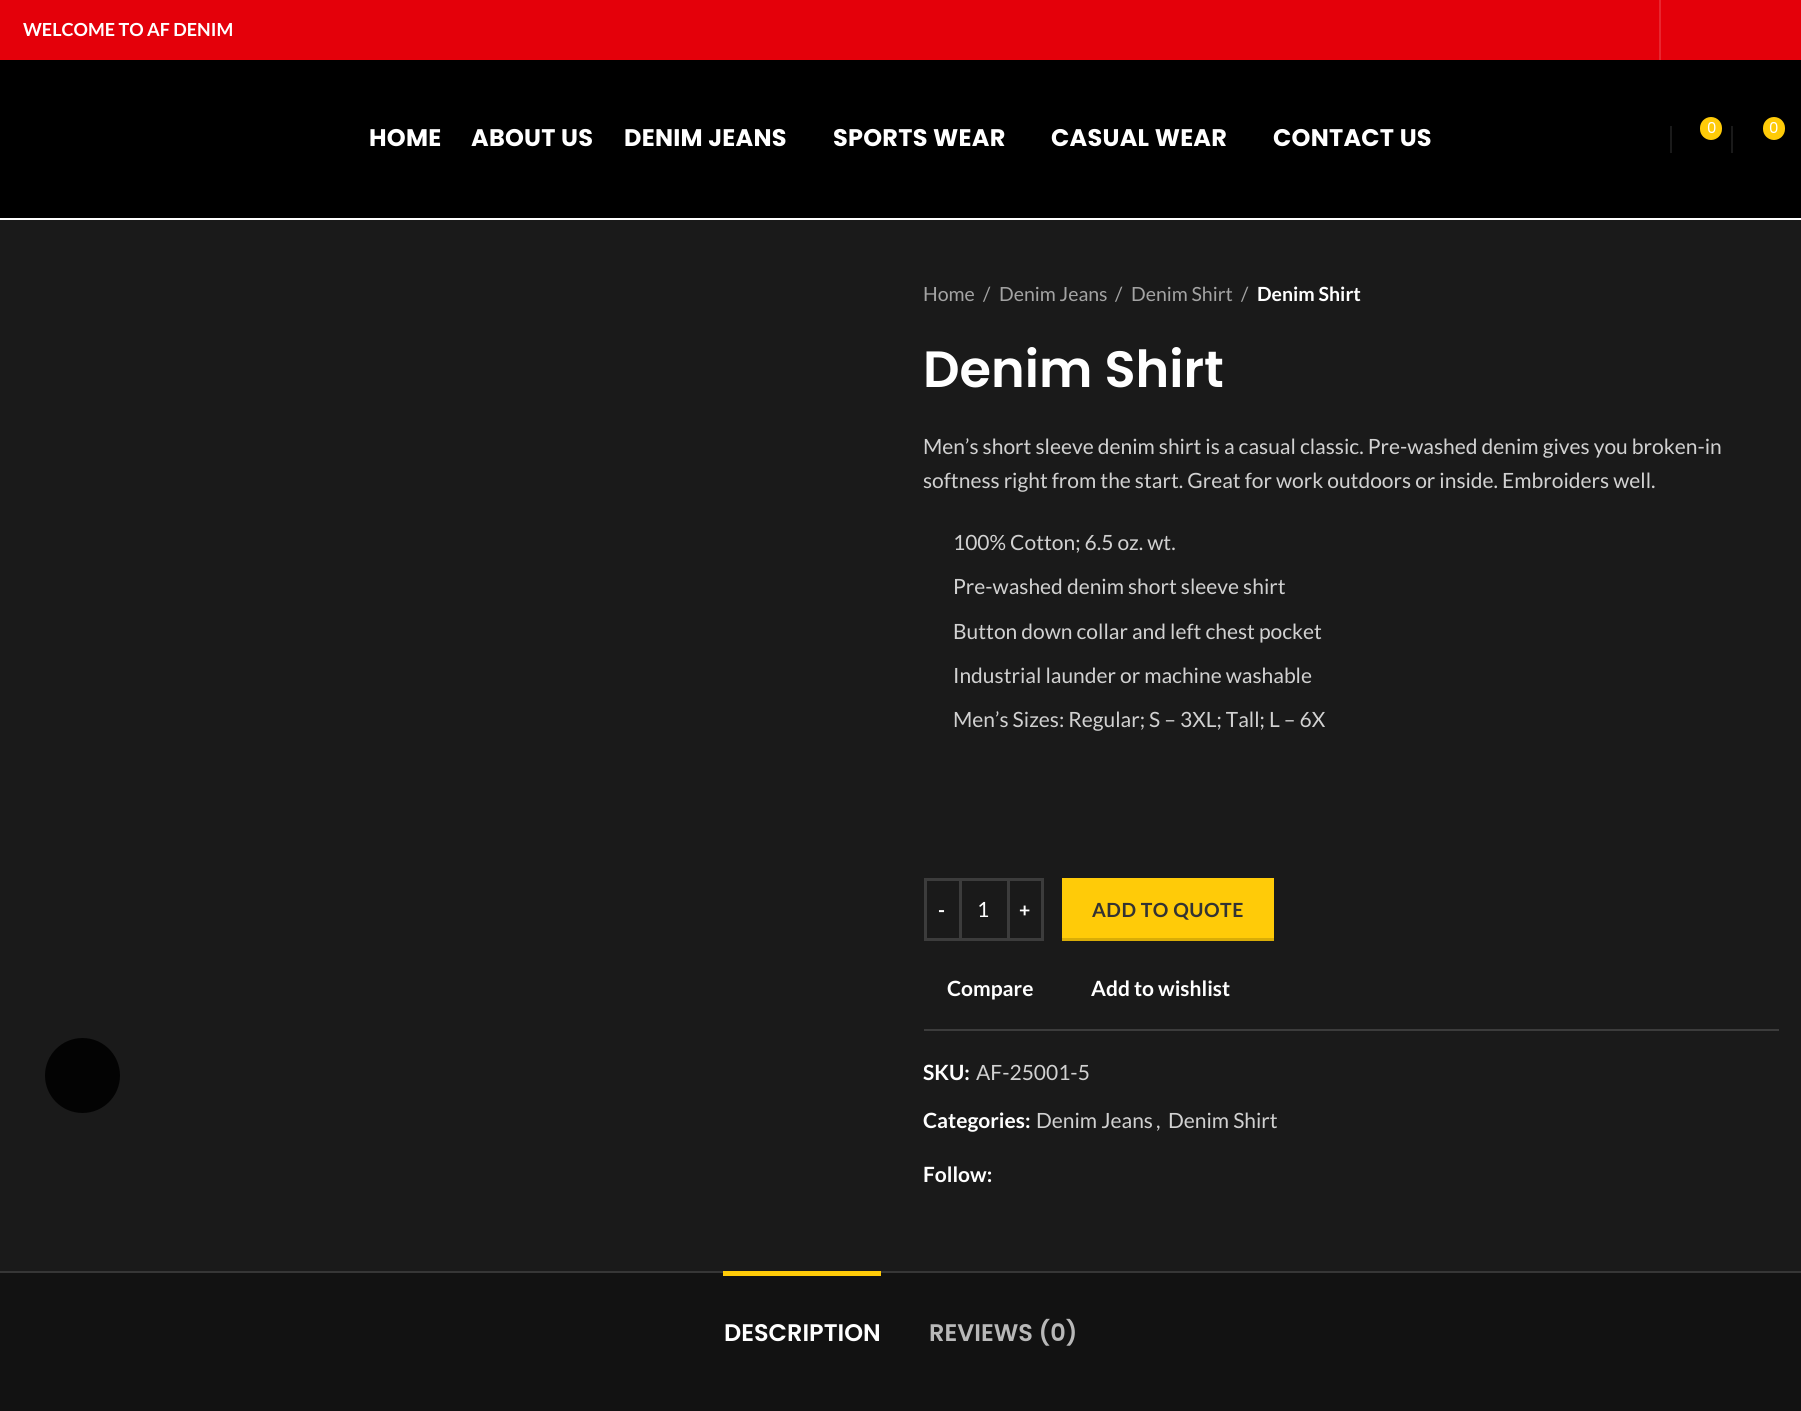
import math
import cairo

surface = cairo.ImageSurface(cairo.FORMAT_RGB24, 1801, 1411)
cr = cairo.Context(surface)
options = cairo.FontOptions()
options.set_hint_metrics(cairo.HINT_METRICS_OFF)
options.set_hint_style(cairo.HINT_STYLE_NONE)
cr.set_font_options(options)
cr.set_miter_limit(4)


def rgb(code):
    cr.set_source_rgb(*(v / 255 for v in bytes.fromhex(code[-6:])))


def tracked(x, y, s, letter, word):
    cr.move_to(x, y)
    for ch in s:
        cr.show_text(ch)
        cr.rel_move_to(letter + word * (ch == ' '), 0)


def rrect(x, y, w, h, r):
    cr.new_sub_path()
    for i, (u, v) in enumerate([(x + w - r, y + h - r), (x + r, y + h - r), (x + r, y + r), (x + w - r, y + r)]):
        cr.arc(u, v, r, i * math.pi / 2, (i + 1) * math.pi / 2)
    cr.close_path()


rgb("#1a1a1a")
cr.paint()
for x, y, w, h, color in [
    (0, 0, 1801, 60, "#e4000a"),
    (1659, 0, 2, 60, "#e8262f"),
    (0, 60, 1801, 158, "#000000"),
    (0, 218, 1801, 2, "#ffffff"),
    (1670, 126, 2, 27, "#1a1a1a"),
]:
    rgb(color)
    cr.rectangle(x, y, w, h)
    cr.fill()
rgb("#ffcb08")
rrect(1700, 117, 22, 23, 11)
cr.fill()
rgb("#1a1a1a")
cr.rectangle(1731, 126, 2, 27)
cr.fill()
rgb("#ffcb08")
rrect(1763, 117, 22, 23, 11)
cr.fill()
rgb("#030303")
cr.arc(82.5, 1075.5, 37.5, 0, 2 * math.pi)
cr.fill()
cr.rectangle(925.5, 879.5, 35, 60)
rgb("#3c3c3c")
cr.set_line_width(3)
cr.stroke()
cr.rectangle(962, 878, 45, 3)
cr.fill()
cr.rectangle(962, 938, 45, 3)
cr.fill()
cr.rectangle(1008.5, 879.5, 34, 60)
cr.stroke()
for x, y, w, h, color in [
    (1062, 878, 212, 60, "#ffcb08"),
    (1062, 938, 212, 3, "#d9ad07"),
    (924, 1029, 855, 2, "#3c3c3c"),
    (0, 1273, 1801, 138, "#121212"),
    (0, 1271, 1801, 2, "#363636"),
    (723, 1271, 158, 5, "#ffcb08"),
]:
    rgb(color)
    cr.rectangle(x, y, w, h)
    cr.fill()
cr.select_font_face("Lato", cairo.FONT_SLANT_NORMAL, cairo.FONT_WEIGHT_BOLD)
cr.set_font_size(18)
rgb("#ffffff")
cr.move_to(23, 36)
cr.show_text("WELCOME TO AF DENIM")
cr.select_font_face("Poppins", cairo.FONT_SLANT_NORMAL, cairo.FONT_WEIGHT_BOLD)
cr.set_font_size(24)
for x, y, s in [
    (369, 146, "HOME"),
    (471, 146, "ABOUT US"),
    (624, 146, "DENIM JEANS"),
    (833, 146, "SPORTS WEAR"),
    (1051, 146, "CASUAL WEAR"),
    (1273, 146, "CONTACT US"),
]:
    tracked(x, y, s, 0.25, 0)
cr.select_font_face("Poppins")
cr.set_font_size(15)
cr.move_to(1707, 133)
cr.show_text("0")
cr.move_to(1769, 133)
cr.show_text("0")
cr.select_font_face("Lato")
cr.set_font_size(19.5)
rgb("#a3a3a3")
for x, y, s in [
    (923, 301, "Home"),
    (983, 301, "/"),
    (999, 301, "Denim Jeans"),
    (1115, 301, "/"),
    (1131, 301, "Denim Shirt"),
    (1241, 301, "/"),
]:
    cr.move_to(x, y)
    cr.show_text(s)
cr.select_font_face("Lato", cairo.FONT_SLANT_NORMAL, cairo.FONT_WEIGHT_BOLD)
rgb("#ffffff")
cr.move_to(1257, 301)
cr.show_text("Denim Shirt")
cr.select_font_face("Poppins SemiBold")
cr.set_font_size(51)
cr.move_to(923, 387)
cr.show_text("Denim Shirt")
cr.select_font_face("Lato")
cr.set_font_size(21)
rgb("#d1d1d1")
for x, y, s in [
    (923, 454, "Men’s short sleeve denim shirt is a casual classic. Pre-washed denim gives you broken-in"),
    (923, 488, "softness right from the start. Great for work outdoors or inside. Embroiders well."),
    (953, 550, "100% Cotton; 6.5 oz. wt."),
    (953, 594, "Pre-washed denim short sleeve shirt"),
    (953, 639, "Button down collar and left chest pocket"),
    (953, 683, "Industrial launder or machine washable"),
    (953, 727, "Men’s Sizes: Regular; S – 3XL; Tall; L – 6X"),
]:
    cr.move_to(x, y)
    cr.show_text(s)
cr.select_font_face("Lato", cairo.FONT_SLANT_NORMAL, cairo.FONT_WEIGHT_BOLD)
cr.set_font_size(19.5)
rgb("#ffffff")
tracked(938, 917, "-", 0.5, 0)
cr.select_font_face("Lato")
cr.set_font_size(21)
cr.move_to(977, 917)
cr.show_text("1")
cr.select_font_face("Lato", cairo.FONT_SLANT_NORMAL, cairo.FONT_WEIGHT_BOLD)
cr.set_font_size(19.5)
tracked(1019, 917, "+", 0.5, 0)
rgb("#333333")
tracked(1092, 917, "ADD TO QUOTE", 0.5, 0)
cr.set_font_size(21)
rgb("#ffffff")
for x, y, s in [
    (947, 996, "Compare"),
    (1091, 996, "Add to wishlist"),
    (923, 1080, "SKU:"),
]:
    cr.move_to(x, y)
    cr.show_text(s)
cr.select_font_face("Lato")
rgb("#d1d1d1")
cr.move_to(976, 1080)
cr.show_text("AF-25001-5")
cr.select_font_face("Lato", cairo.FONT_SLANT_NORMAL, cairo.FONT_WEIGHT_BOLD)
rgb("#ffffff")
cr.move_to(923, 1128)
cr.show_text("Categories:")
cr.select_font_face("Lato")
rgb("#d1d1d1")
for x, y, s in [
    (1036, 1128, "Denim Jeans"),
    (1156, 1128, ","),
    (1168, 1128, "Denim Shirt"),
]:
    cr.move_to(x, y)
    cr.show_text(s)
cr.select_font_face("Lato", cairo.FONT_SLANT_NORMAL, cairo.FONT_WEIGHT_BOLD)
rgb("#ffffff")
cr.move_to(923, 1182)
cr.show_text("Follow:")
cr.select_font_face("Poppins SemiBold")
cr.set_font_size(24)
cr.move_to(724, 1341)
cr.show_text("DESCRIPTION")
rgb("#b8b8b8")
cr.move_to(929, 1341)
cr.show_text("REVIEWS (0)")
surface.write_to_png("page.png")
